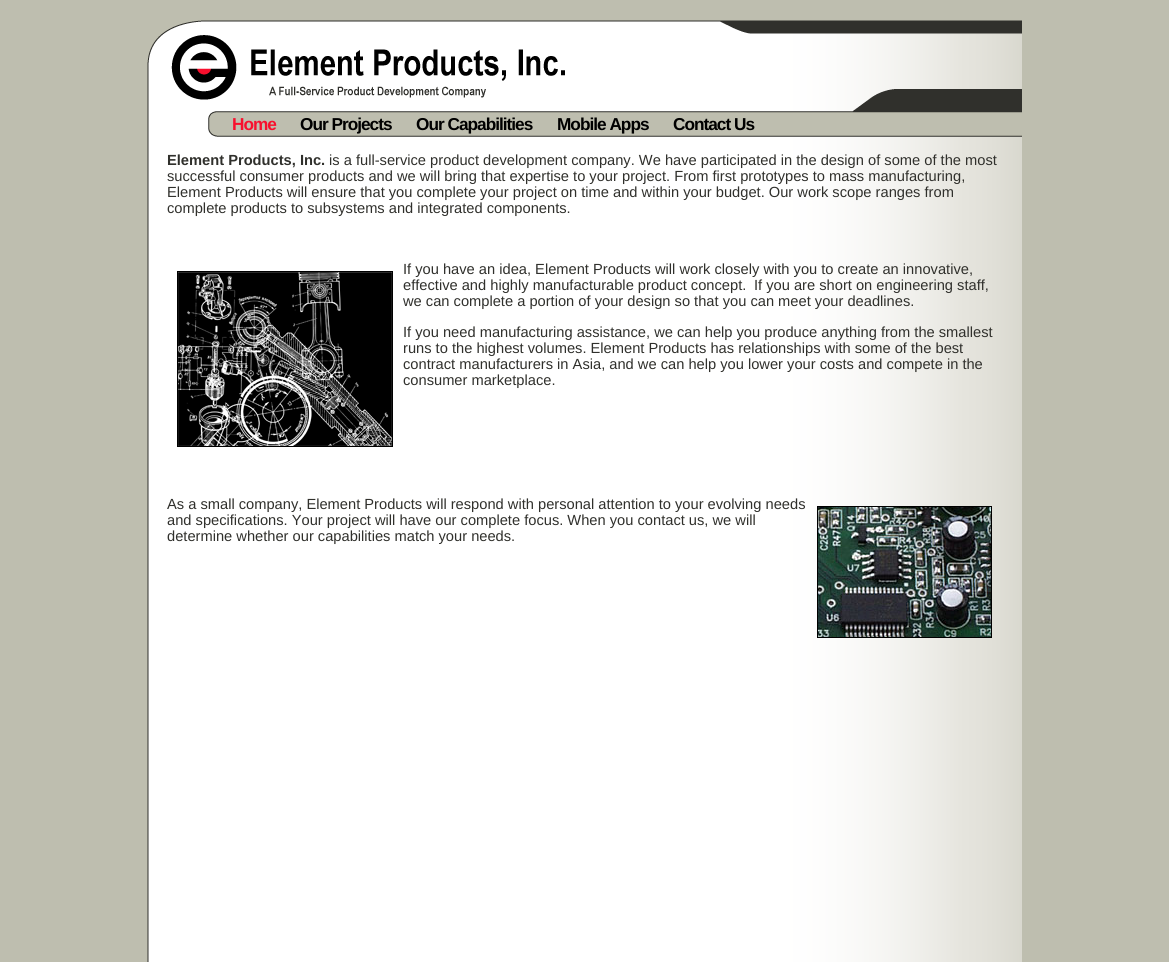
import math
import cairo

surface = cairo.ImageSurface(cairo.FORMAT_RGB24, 1169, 962)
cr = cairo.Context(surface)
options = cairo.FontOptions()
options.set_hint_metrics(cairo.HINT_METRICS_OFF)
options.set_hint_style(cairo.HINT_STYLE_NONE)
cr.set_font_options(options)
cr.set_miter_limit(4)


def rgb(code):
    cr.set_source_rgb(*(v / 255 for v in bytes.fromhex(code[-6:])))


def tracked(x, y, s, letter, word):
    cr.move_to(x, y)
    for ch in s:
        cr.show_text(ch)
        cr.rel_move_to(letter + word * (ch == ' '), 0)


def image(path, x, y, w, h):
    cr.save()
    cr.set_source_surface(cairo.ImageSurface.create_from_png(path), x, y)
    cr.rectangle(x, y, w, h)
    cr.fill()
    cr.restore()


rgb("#bebeaf")
cr.paint()
image("img/1.png", 147, 137, 875, 825)
image("img/2.png", 147, 20, 875, 91)
image("img/3.png", 147, 111, 875, 26)
cr.rectangle(177.5, 271.5, 215, 175)
rgb("#000000")
cr.set_line_width(1)
cr.stroke()
image("img/4.png", 178, 272, 214, 174)
cr.rectangle(817.5, 506.5, 174, 131)
cr.stroke()
image("img/5.png", 818, 507, 173, 130)
cr.select_font_face("Liberation Sans", cairo.FONT_SLANT_NORMAL, cairo.FONT_WEIGHT_BOLD)
cr.set_font_size(17.25)
rgb("#f80f2d")
tracked(232, 130, "Home", -1, 0)
rgb("#000000")
for x, y, s in [
    (300, 130, "Our Projects"),
    (416, 130, "Our Capabilities"),
    (557, 130, "Mobile Apps"),
    (673, 130, "Contact Us"),
]:
    tracked(x, y, s, -1, 0)
cr.set_font_size(14.67)
rgb("#30302c")
cr.move_to(167, 165)
cr.show_text("Element Products, Inc.")
cr.select_font_face("Liberation Sans")
for x, y, s in [
    (329, 165, "is a full-service product development company. We have participated in the design of some of the most"),
    (167, 181, "successful consumer products and we will bring that expertise to your project. From first prototypes to mass manufacturing,"),
    (167, 197, "Element Products will ensure that you complete your project on time and within your budget. Our work scope ranges from"),
    (167, 213, "complete products to subsystems and integrated components."),
    (403, 274, "If you have an idea, Element Products will work closely with you to create an innovative,"),
    (403, 290, "effective and highly manufacturable product concept."),
    (754, 290, "If you are short on engineering staff,"),
    (403, 306, "we can complete a portion of your design so that you can meet your deadlines."),
    (403, 337, "If you need manufacturing assistance, we can help you produce anything from the smallest"),
    (403, 353, "runs to the highest volumes. Element Products has relationships with some of the best"),
    (403, 369, "contract manufacturers in Asia, and we can help you lower your costs and compete in the"),
    (403, 385, "consumer marketplace."),
    (167, 509, "As a small company, Element Products will respond with personal attention to your evolving needs"),
    (167, 525, "and specifications. Your project will have our complete focus. When you contact us, we will"),
    (167, 541, "determine whether our capabilities match your needs."),
]:
    cr.move_to(x, y)
    cr.show_text(s)
surface.write_to_png("page.png")
